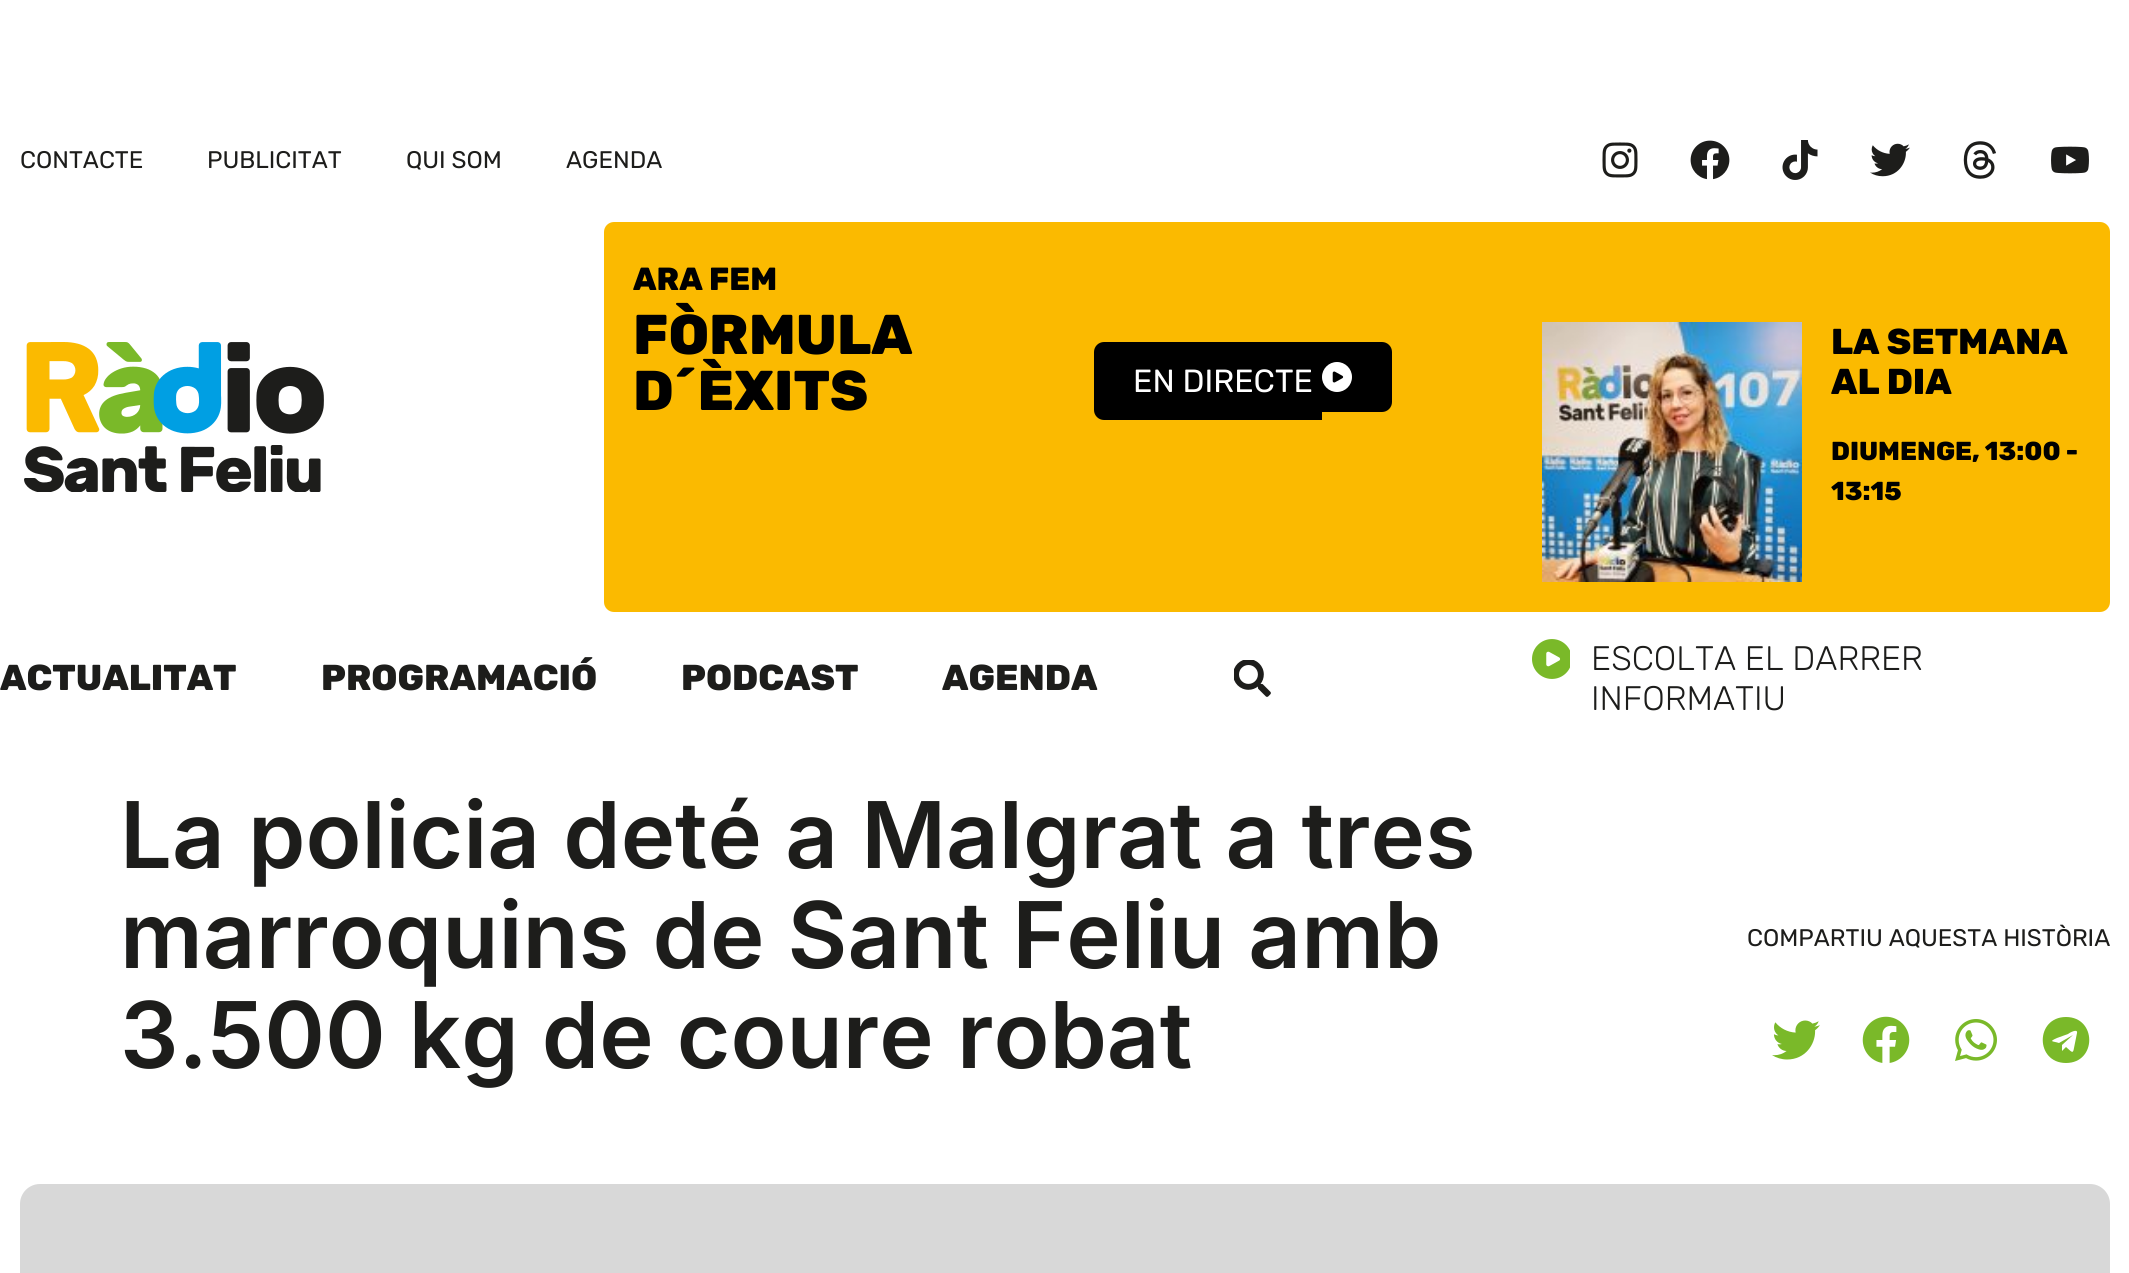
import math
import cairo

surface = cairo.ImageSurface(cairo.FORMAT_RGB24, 2129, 1273)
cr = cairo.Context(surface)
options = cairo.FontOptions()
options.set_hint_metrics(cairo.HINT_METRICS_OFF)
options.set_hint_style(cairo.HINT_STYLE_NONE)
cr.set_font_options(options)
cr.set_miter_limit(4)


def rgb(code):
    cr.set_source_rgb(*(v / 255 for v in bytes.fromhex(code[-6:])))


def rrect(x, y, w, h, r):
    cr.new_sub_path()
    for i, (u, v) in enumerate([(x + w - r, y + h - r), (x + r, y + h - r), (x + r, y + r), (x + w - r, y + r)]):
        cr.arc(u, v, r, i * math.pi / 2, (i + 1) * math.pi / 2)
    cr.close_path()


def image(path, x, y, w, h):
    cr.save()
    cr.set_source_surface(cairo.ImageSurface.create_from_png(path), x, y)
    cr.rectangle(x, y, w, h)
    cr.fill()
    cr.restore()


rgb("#ffffff")
cr.paint()
image("img/1.png", 1602, 142, 36, 36)
image("img/2.png", 1690, 140, 40, 40)
image("img/3.png", 1782, 140, 36, 40)
image("img/4.png", 1870, 143, 40, 34)
image("img/5.png", 1963, 141, 33, 38)
image("img/6.png", 2051, 146, 38, 28)
image("img/7.png", 24, 342, 300, 150)
rgb("#fbba00")
rrect(604, 222, 1506, 390, 10)
cr.fill()
rgb("#000000")
cr.new_path()
cr.move_to(1104, 342)
cr.line_to(1314, 342)
cr.line_to(1314, 420)
cr.line_to(1104, 420)
cr.curve_to(1098.5, 420, 1094, 415.5, 1094, 410)
cr.line_to(1094, 352)
cr.curve_to(1094, 346.5, 1098.5, 342, 1104, 342)
cr.close_path()
cr.fill()
cr.rectangle(1314, 342, 8, 78)
cr.fill()
cr.new_path()
cr.move_to(1322, 342)
cr.line_to(1382, 342)
cr.curve_to(1387.5, 342, 1392, 346.5, 1392, 352)
cr.line_to(1392, 402)
cr.curve_to(1392, 407.5, 1387.5, 412, 1382, 412)
cr.line_to(1322, 412)
cr.close_path()
cr.fill()
image("img/8.png", 1322, 362, 30, 30)
image("img/9.png", 1542, 322, 260, 260)
image("img/10.png", 1234, 660, 37, 37)
image("img/11.png", 1532, 639, 38, 40)
image("img/12.png", 1772, 1020, 48, 40)
image("img/13.png", 1862, 1016, 48, 47)
image("img/14.png", 1955, 1019, 42, 42)
rgb("#7ab929")
cr.new_path()
cr.move_to(2066, 1017)
cr.curve_to(2035, 1017, 2035, 1063, 2066, 1063)
cr.curve_to(2097, 1063, 2097, 1017, 2066, 1017)
cr.close_path()
cr.move_to(2077, 1033)
cr.line_to(2074, 1048)
cr.curve_to(2073, 1055, 2071, 1051, 2066, 1047)
cr.line_to(2062, 1051)
cr.line_to(2062, 1045)
cr.line_to(2073, 1035)
cr.line_to(2059, 1043)
cr.curve_to(2053, 1041, 2048, 1042, 2057, 1038)
cr.line_to(2068, 1034)
cr.curve_to(2069, 1033, 2078, 1028, 2077, 1033)
cr.close_path()
cr.fill()
rgb("#d8d8d8")
rrect(20, 1184, 2090, 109, 20)
cr.fill()
cr.select_font_face("Rubik")
cr.set_font_size(24)
rgb("#1d1d1b")
for x, y, s in [
    (20, 168, "CONTACTE"),
    (207, 168, "PUBLICITAT"),
    (406, 168, "QUI SOM"),
    (566, 168, "AGENDA"),
]:
    cr.move_to(x, y)
    cr.show_text(s)
cr.select_font_face("Rubik ExtraBold")
cr.set_font_size(32)
rgb("#000000")
cr.move_to(633, 290)
cr.show_text("ARA FEM")
cr.set_font_size(56)
cr.move_to(633, 354)
cr.show_text("FÒRMULA")
cr.move_to(633, 410)
cr.show_text("D´ÈXITS")
cr.select_font_face("Rubik")
cr.set_font_size(32)
rgb("#ffffff")
cr.move_to(1133, 392)
cr.show_text("EN DIRECTE")
cr.select_font_face("Rubik ExtraBold")
cr.set_font_size(36)
rgb("#000000")
cr.move_to(1831, 354)
cr.show_text("LA SETMANA")
cr.move_to(1831, 394)
cr.show_text("AL DIA")
cr.set_font_size(26)
cr.move_to(1831, 460)
cr.show_text("DIUMENGE, 13:00 -")
cr.move_to(1831, 500)
cr.show_text("13:15")
cr.set_font_size(36)
rgb("#1d1d1b")
for x, y, s in [
    (0, 690, "ACTUALITAT"),
    (321, 690, "PROGRAMACIÓ"),
    (681, 690, "PODCAST"),
    (942, 690, "AGENDA"),
]:
    cr.move_to(x, y)
    cr.show_text(s)
cr.select_font_face("Rubik Light")
cr.set_font_size(34)
cr.move_to(1591, 670)
cr.show_text("ESCOLTA EL DARRER")
cr.move_to(1591, 710)
cr.show_text("INFORMATIU")
cr.select_font_face("Inter SemiBold")
cr.set_font_size(92)
for x, y, s in [
    (120, 868, "La policia deté a Malgrat a tres"),
    (120, 968, "marroquins de Sant Feliu amb"),
    (120, 1068, "3.500 kg de coure robat"),
]:
    cr.move_to(x, y)
    cr.show_text(s)
cr.select_font_face("Rubik")
cr.set_font_size(24)
cr.move_to(1747, 946)
cr.show_text("COMPARTIU AQUESTA HISTÒRIA")
surface.write_to_png("page.png")
